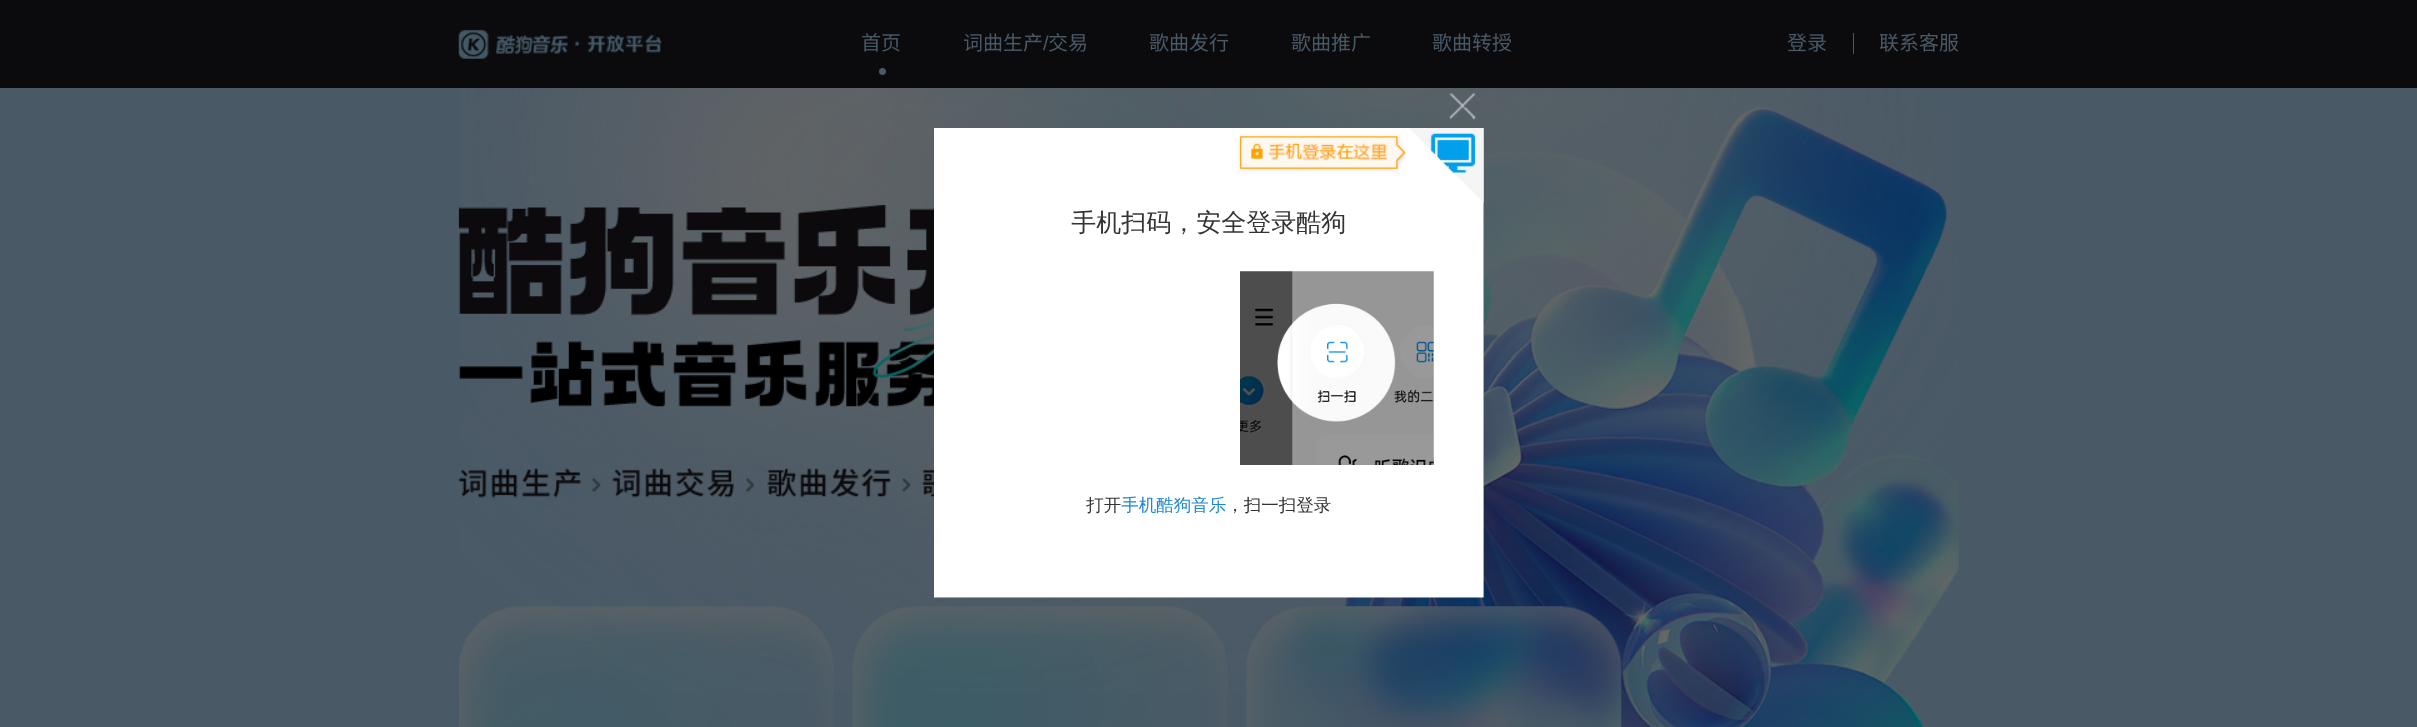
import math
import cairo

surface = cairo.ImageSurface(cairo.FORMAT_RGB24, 2417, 727)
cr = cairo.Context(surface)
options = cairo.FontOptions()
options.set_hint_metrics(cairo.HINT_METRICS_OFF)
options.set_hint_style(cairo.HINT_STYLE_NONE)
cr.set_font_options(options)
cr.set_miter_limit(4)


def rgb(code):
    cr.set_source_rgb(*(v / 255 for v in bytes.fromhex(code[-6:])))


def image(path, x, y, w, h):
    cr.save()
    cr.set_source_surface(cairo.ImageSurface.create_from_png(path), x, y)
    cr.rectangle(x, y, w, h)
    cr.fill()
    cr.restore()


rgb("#495966")
cr.paint()
rgb("#0b0a0d")
cr.rectangle(0, 0, 2417, 88)
cr.fill()
image("img/1.png", 458, 29, 204, 30)
rgb("#495966")
cr.arc(882.5, 71.5, 3.5, 0, 2 * math.pi)
cr.fill()
cr.rectangle(1853, 33, 1, 21)
cr.fill()
image("img/4.png", 1343, 107, 616, 620)
image("img/2.png", 459, 88, 1500, 605)
image("img/3.png", 458, 204, 476, 203)
image("img/5.png", 458, 467, 476, 31)
image("img/6.png", 459, 606, 375, 121)
image("img/7.png", 852, 606, 376, 121)
image("img/8.png", 1246, 606, 376, 121)
image("img/9.png", 1449, 93, 27, 27)
image("img/10.png", 934, 128, 550, 470)
cr.select_font_face("Noto Sans CJK SC")
cr.set_font_size(20)
cr.move_to(861, 50)
cr.show_text("首页")
cr.move_to(963, 50)
cr.show_text("词曲生产")
cr.select_font_face("Liberation Sans")
cr.move_to(1043, 50)
cr.show_text("/")
cr.select_font_face("Noto Sans CJK SC")
for x, y, s in [
    (1048, 50, "交易"),
    (1149, 50, "歌曲发行"),
    (1291, 50, "歌曲推广"),
    (1432, 50, "歌曲转授"),
    (1787, 50, "登录"),
    (1879, 50, "联系客服"),
]:
    cr.move_to(x, y)
    cr.show_text(s)
surface.write_to_png("page.png")
